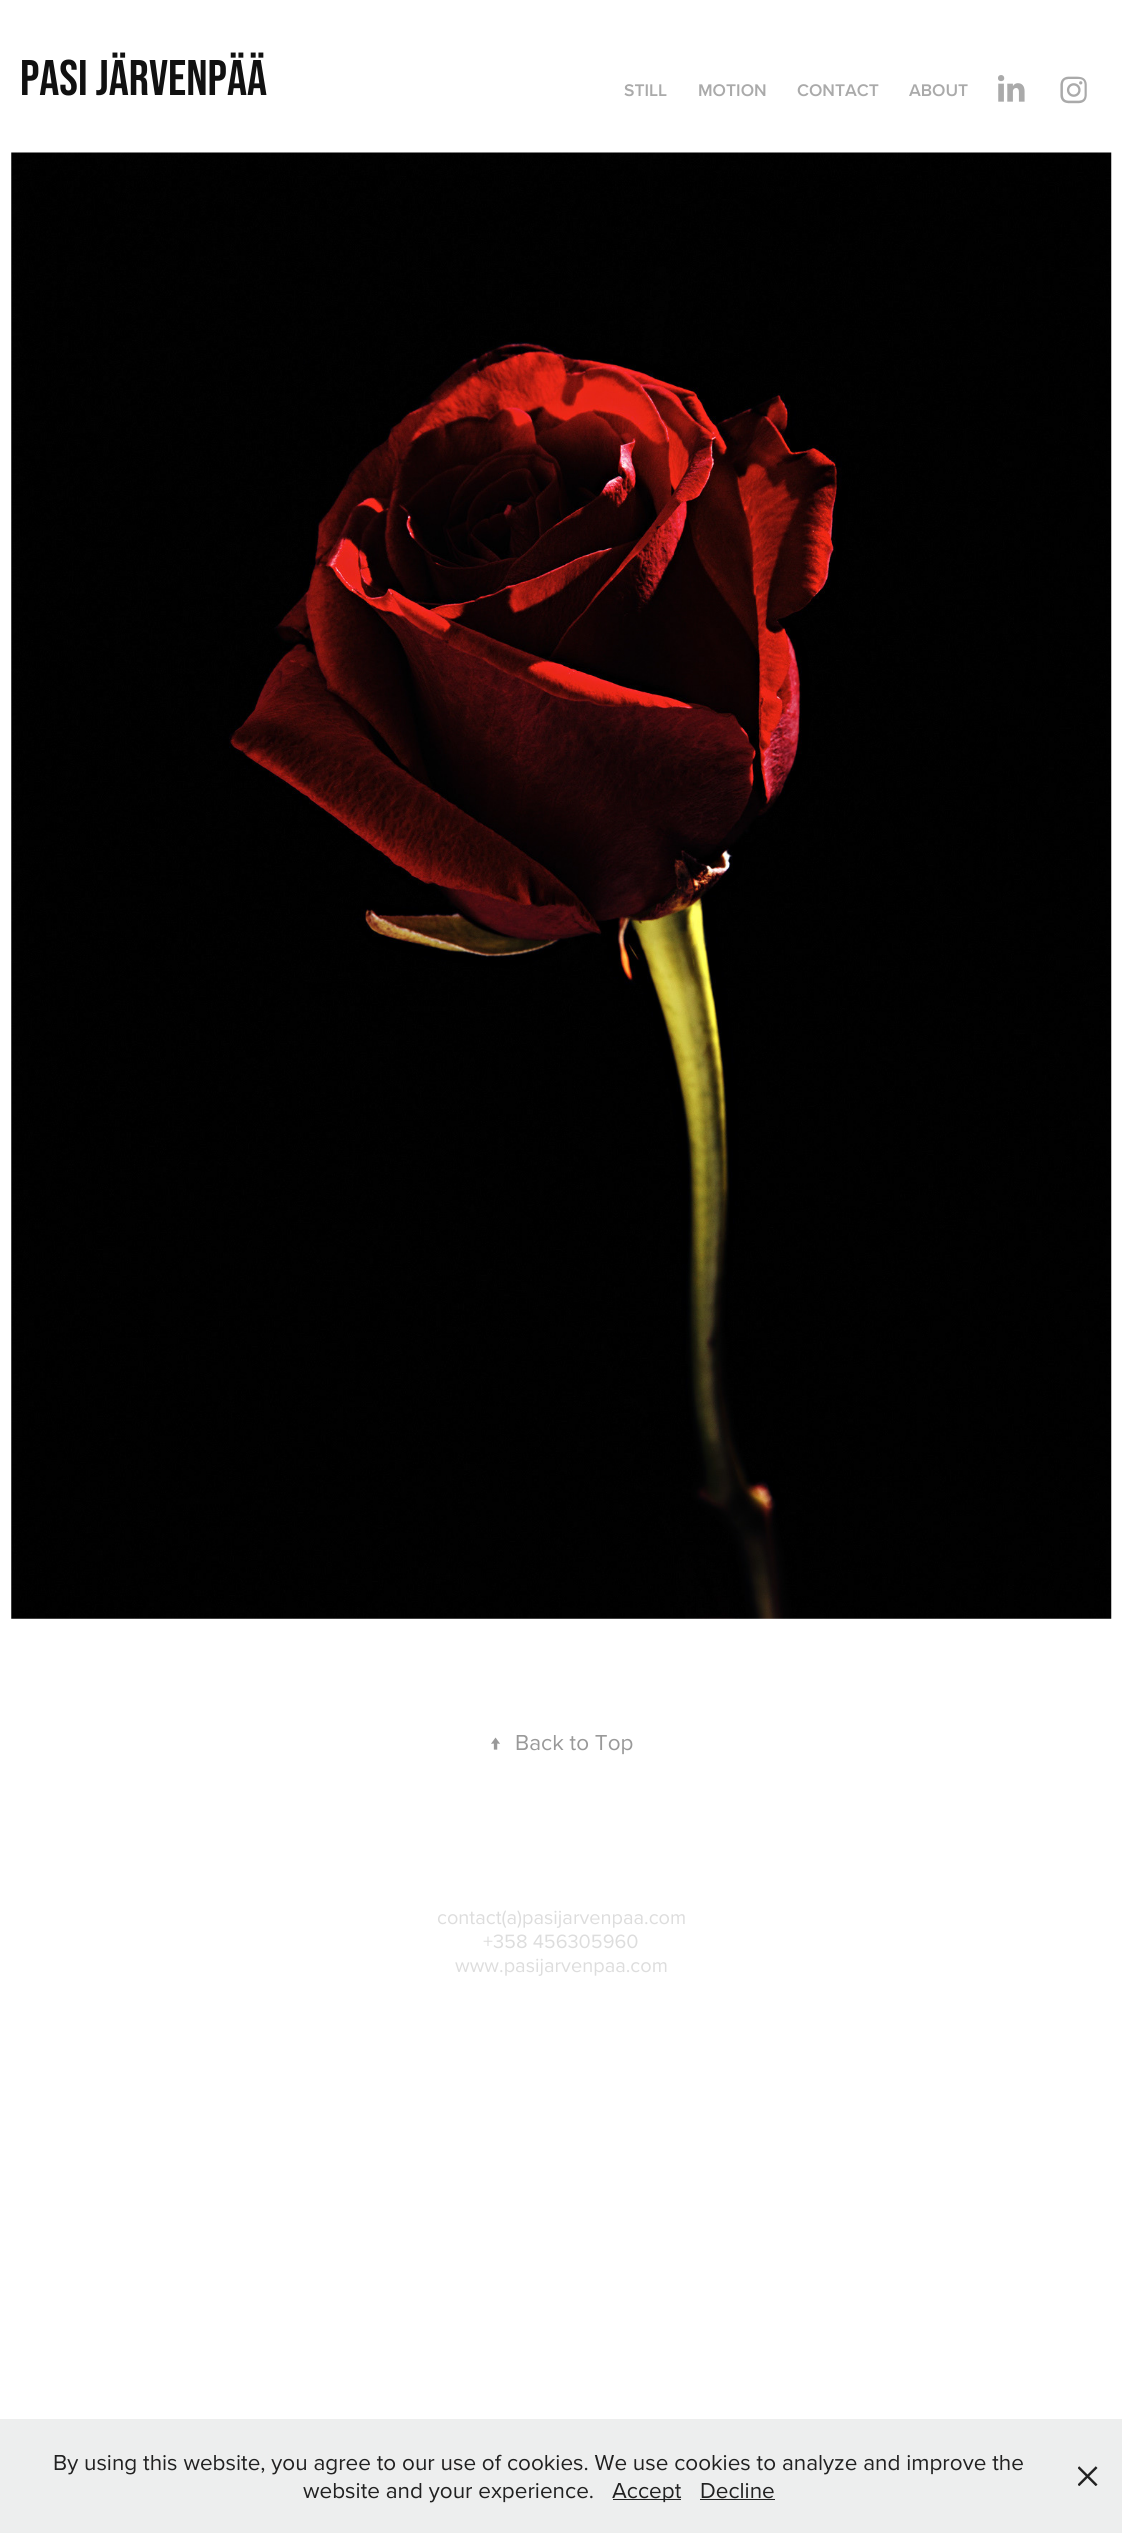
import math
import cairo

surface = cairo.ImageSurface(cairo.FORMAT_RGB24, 1122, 2533)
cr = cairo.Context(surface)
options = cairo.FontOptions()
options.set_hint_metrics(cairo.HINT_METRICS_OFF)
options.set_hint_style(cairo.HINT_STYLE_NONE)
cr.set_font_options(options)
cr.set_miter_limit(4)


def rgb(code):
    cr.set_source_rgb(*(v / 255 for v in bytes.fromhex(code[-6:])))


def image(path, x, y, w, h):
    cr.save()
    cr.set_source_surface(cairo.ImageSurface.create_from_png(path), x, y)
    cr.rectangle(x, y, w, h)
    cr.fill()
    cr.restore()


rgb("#ffffff")
cr.paint()
image("img/1.png", 998, 75, 27, 27)
image("img/2.png", 1060, 76, 27, 28)
image("img/3.png", 11, 152, 1101, 1467)
for x, y, w, h, color in [
    (0, 2419, 1122, 114, "#edeeee"),
    (613, 2499, 68, 1, "#212121"),
    (700, 2499, 75, 1, "#212121"),
]:
    rgb(color)
    cr.rectangle(x, y, w, h)
    cr.fill()
image("img/4.png", 1078, 2466, 20, 20)
cr.select_font_face("Bebas Neue")
cr.set_font_size(50)
rgb("#111111")
cr.move_to(20, 95)
cr.show_text("PASI JÄRVENPÄÄ")
cr.select_font_face("Proxima Nova SemiBold")
cr.set_font_size(17.5)
rgb("#aaaaaa")
for x, y, s in [
    (624, 96, "STILL"),
    (698, 96, "MOTION"),
    (797, 96, "CONTACT"),
    (909, 96, "ABOUT"),
]:
    cr.move_to(x, y)
    cr.show_text(s)
cr.select_font_face("Proxima Nova")
cr.set_font_size(22.5)
rgb("#999999")
cr.move_to(489, 1750)
cr.show_text("↑")
cr.move_to(515, 1750)
cr.show_text("Back to Top")
cr.set_font_size(20)
rgb("#dddddd")
for x, y, s in [
    (437, 1924, "contact(a)pasijarvenpaa.com"),
    (483, 1948, "+358 456305960"),
    (455, 1972, "www.pasijarvenpaa.com"),
]:
    cr.move_to(x, y)
    cr.show_text(s)
cr.set_font_size(22.5)
rgb("#212121")
for x, y, s in [
    (53, 2470, "By using this website, you agree to our use of cookies. We use cookies to analyze and improve the"),
    (303, 2498, "website and your experience."),
    (612, 2498, "Accept"),
    (700, 2498, "Decline"),
]:
    cr.move_to(x, y)
    cr.show_text(s)
surface.write_to_png("page.png")
